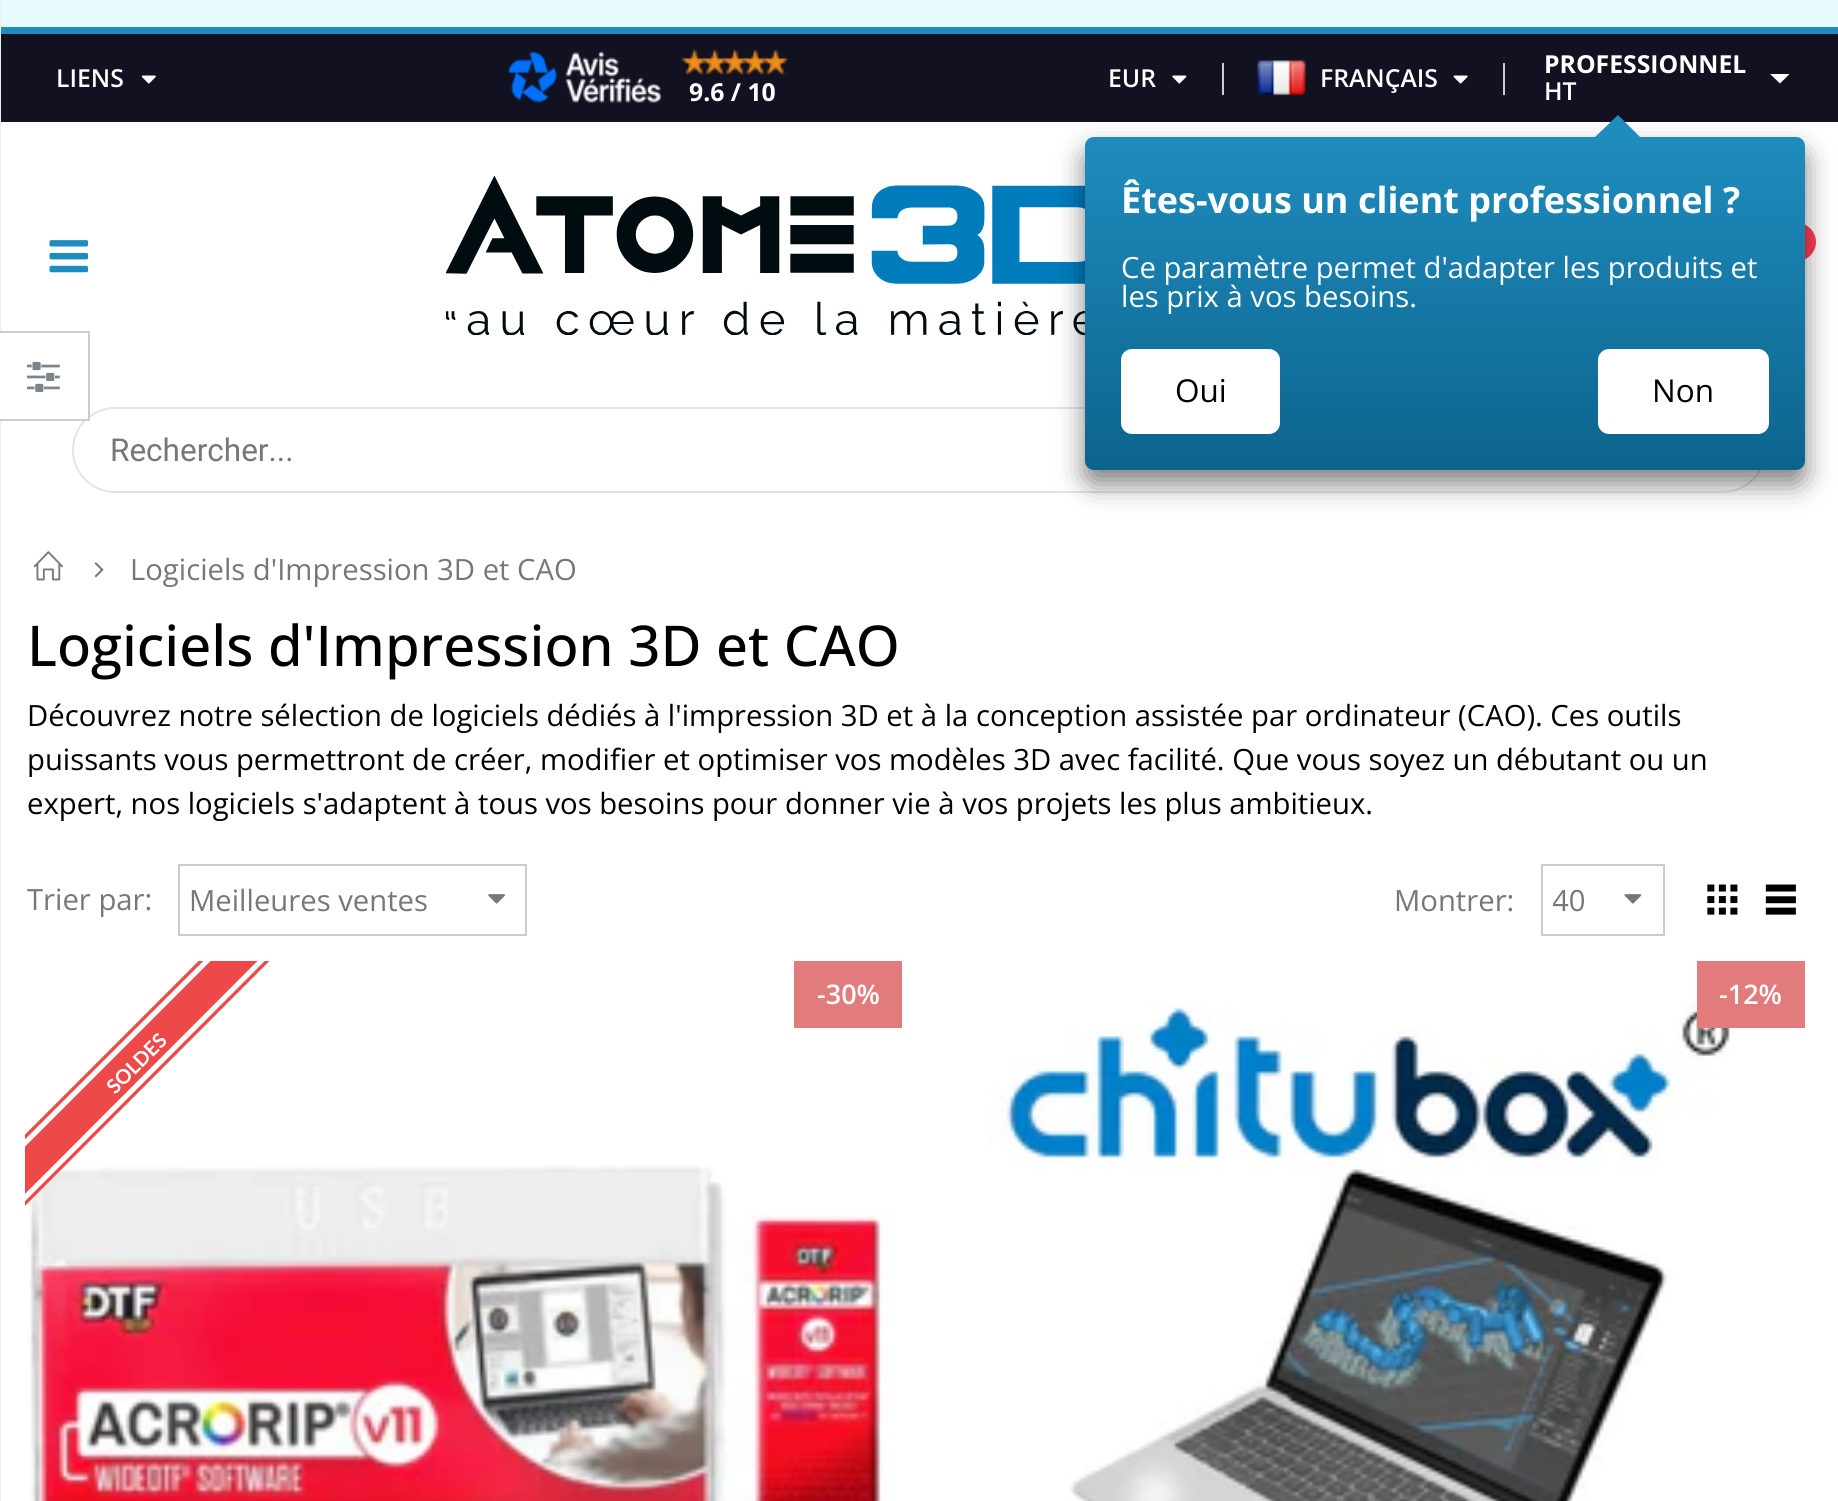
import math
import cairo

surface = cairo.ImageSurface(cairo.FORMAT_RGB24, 1838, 1501)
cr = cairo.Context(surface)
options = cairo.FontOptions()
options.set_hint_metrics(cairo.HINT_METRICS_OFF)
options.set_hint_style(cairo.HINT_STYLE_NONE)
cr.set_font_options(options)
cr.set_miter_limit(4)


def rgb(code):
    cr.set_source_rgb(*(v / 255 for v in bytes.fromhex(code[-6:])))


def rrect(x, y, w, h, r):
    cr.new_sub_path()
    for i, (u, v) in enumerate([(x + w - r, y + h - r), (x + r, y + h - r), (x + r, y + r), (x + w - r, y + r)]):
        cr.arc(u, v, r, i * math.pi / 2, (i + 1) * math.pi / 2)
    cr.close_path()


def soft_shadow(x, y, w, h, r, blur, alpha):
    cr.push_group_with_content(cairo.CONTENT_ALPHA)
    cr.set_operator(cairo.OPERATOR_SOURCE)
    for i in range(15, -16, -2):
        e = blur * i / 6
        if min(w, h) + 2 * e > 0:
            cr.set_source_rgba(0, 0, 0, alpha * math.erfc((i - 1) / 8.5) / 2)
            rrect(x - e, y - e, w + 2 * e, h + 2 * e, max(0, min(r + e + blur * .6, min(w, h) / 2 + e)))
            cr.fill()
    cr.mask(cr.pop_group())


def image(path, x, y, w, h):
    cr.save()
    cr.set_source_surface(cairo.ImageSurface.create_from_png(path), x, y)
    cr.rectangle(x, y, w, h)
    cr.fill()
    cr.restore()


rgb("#ffffff")
cr.paint()
for x, y, w, h, color in [
    (1, 0, 1837, 27, "#e7fbfe"),
    (0, 27, 1838, 7, "#1f8cbe"),
    (1, 34, 1837, 88, "#111122"),
]:
    rgb(color)
    cr.rectangle(x, y, w, h)
    cr.fill()
rgb("#ffffff")
cr.new_path()
cr.move_to(1780, 83.5)
cr.line_to(1770, 74)
cr.line_to(1789.5, 74)
cr.close_path()
cr.fill()
image("img/8.png", 446, 176, 639, 159)
rgb("#ff4052")
cr.arc(1797, 242, 19, 0, 2 * math.pi)
cr.fill()
rrect(73, 408, 1692, 84, 42)
rgb("#e1e5e9")
cr.stroke()
rgb("#000000")
soft_shadow(1085, 151, 720, 333, 9, 13.5, 0.5)
gradient = cairo.LinearGradient(1445, 137, 1445, 470)
gradient.add_color_stop_rgba(0, 0.122, 0.549, 0.745, 1)
gradient.add_color_stop_rgba(1, 0.047, 0.392, 0.553, 1)
cr.set_source(gradient)
rrect(1085, 137, 720, 333, 9)
cr.fill()
rgb("#1f8cbe")
cr.new_path()
cr.move_to(1640, 137)
cr.line_to(1595, 137)
cr.line_to(1618, 115)
cr.close_path()
cr.fill()
rgb("#ffffff")
rrect(1121, 349, 159, 85, 11)
cr.fill()
rrect(1598, 349, 171, 85, 11)
cr.fill()
image("img/1.png", 141, 75, 15, 9)
image("img/2.png", 507, 51, 154, 52)
image("img/3.png", 681, 49, 107, 26)
image("img/4.png", 1172, 75, 15, 9)
rgb("#cccccc")
cr.rectangle(1222, 63, 2, 32)
cr.fill()
image("img/5.png", 1257, 60, 49, 36)
image("img/6.png", 1453, 75, 15, 9)
cr.rectangle(1503, 63, 2, 32)
cr.fill()
image("img/7.png", 49, 240, 40, 33)
image("img/9.png", 34, 551, 29, 30)
image("img/10.png", 94, 562, 10, 16)
for x, y, w, h, color in [
    (0, 0, 1, 1501, "#efefef"),
    (0, 333, 88, 86, "#ffffff"),
    (0, 331, 90, 2, "#cccccc"),
    (88, 331, 2, 90, "#cccccc"),
    (0, 419, 90, 2, "#cccccc"),
]:
    rgb(color)
    cr.rectangle(x, y, w, h)
    cr.fill()
image("img/11.png", 27, 361, 33, 31)
cr.rectangle(179, 865, 347, 70)
cr.stroke()
image("img/12.png", 488, 894, 17, 10)
cr.rectangle(1542, 865, 122, 70)
cr.stroke()
image("img/13.png", 1624, 894, 18, 10)
image("img/14.png", 1707, 884, 31, 31)
image("img/15.png", 1765, 884, 31, 31)
rgb("#e27c7c")
cr.rectangle(794, 961, 108, 67)
cr.fill()
image("img/16.png", 28, 1165, 868, 336)
cr.save()
cr.rectangle(25, 961, 270, 270)
cr.clip()
cr.new_path()
cr.move_to(-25.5, 1187.5)
cr.line_to(261, 901)
cr.line_to(294, 934)
cr.line_to(8, 1220.5)
cr.close_path()
rgb("#ed4949")
cr.set_line_width(3.4)
cr.stroke()
cr.new_path()
cr.move_to(-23, 1187)
cr.line_to(261, 903)
cr.line_to(292, 934)
cr.line_to(8, 1218)
cr.close_path()
cr.fill()
cr.new_path()
cr.move_to(-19.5, 1187.5)
cr.line_to(261, 907)
cr.line_to(288, 934)
cr.line_to(8, 1214.5)
cr.close_path()
rgb("#ffffff")
cr.set_line_width(5.1)
cr.stroke()
cr.restore()
image("img/17.png", 987, 1002, 743, 499)
cr.rectangle(1697, 961, 108, 67)
cr.fill()
cr.select_font_face("Open Sans", cairo.FONT_SLANT_NORMAL, cairo.FONT_WEIGHT_BOLD)
cr.set_font_size(24.75)
rgb("#ffffff")
cr.move_to(1544, 73)
cr.show_text("PROFESSIONNEL")
cr.select_font_face("Open Sans SemiBold")
cr.move_to(1544, 100)
cr.show_text("HT")
cr.select_font_face("Open Sans", cairo.FONT_SLANT_NORMAL, cairo.FONT_WEIGHT_BOLD)
cr.set_font_size(36)
cr.move_to(1121, 213)
cr.show_text("Êtes-vous un client professionnel ?")
cr.select_font_face("Open Sans")
cr.set_font_size(29.25)
cr.move_to(1121, 278)
cr.show_text("Ce paramètre permet d'adapter les produits et")
cr.move_to(1121, 307)
cr.show_text("les prix à vos besoins.")
cr.set_font_size(31.5)
rgb("#000000")
cr.move_to(1175, 402)
cr.show_text("Oui")
cr.move_to(1652, 402)
cr.show_text("Non")
cr.select_font_face("Open Sans SemiBold")
cr.set_font_size(24.75)
rgb("#ffffff")
cr.move_to(56, 87)
cr.show_text("LIENS")
cr.select_font_face("Open Sans", cairo.FONT_SLANT_NORMAL, cairo.FONT_WEIGHT_BOLD)
cr.move_to(689, 101)
cr.show_text("9.6 / 10")
cr.select_font_face("Open Sans SemiBold")
cr.move_to(1108, 87)
cr.show_text("EUR")
cr.move_to(1320, 87)
cr.show_text("FRANÇAIS")
cr.select_font_face("Roboto")
cr.set_font_size(31.5)
rgb("#777777")
cr.move_to(110, 461)
cr.show_text("Rechercher...")
cr.select_font_face("Open Sans")
cr.set_font_size(29.25)
cr.move_to(130, 580)
cr.show_text("Logiciels d'Impression 3D et CAO")
cr.select_font_face("Open Sans Medium")
cr.set_font_size(56.25)
rgb("#000000")
cr.move_to(27, 666)
cr.show_text("Logiciels d'Impression 3D et CAO")
cr.select_font_face("Open Sans")
cr.set_font_size(29.25)
for x, y, s in [
    (27, 726, "Découvrez notre sélection de logiciels dédiés à l'impression 3D et à la conception assistée par ordinateur (CAO). Ces outils"),
    (27, 770, "puissants vous permettront de créer, modifier et optimiser vos modèles 3D avec facilité. Que vous soyez un débutant ou un"),
    (27, 814, "expert, nos logiciels s'adaptent à tous vos besoins pour donner vie à vos projets les plus ambitieux."),
]:
    cr.move_to(x, y)
    cr.show_text(s)
rgb("#777777")
for x, y, s in [
    (27, 910, "Trier par:"),
    (189, 911, "Meilleures ventes"),
    (1394, 911, "Montrer:"),
]:
    cr.move_to(x, y)
    cr.show_text(s)
cr.save()
cr.rectangle(1553, 880, 65, 40)
cr.clip()
cr.move_to(1552, 911)
cr.show_text("40")
cr.restore()
cr.select_font_face("Open Sans SemiBold")
cr.set_font_size(27)
rgb("#ffffff")
cr.move_to(817, 1004)
cr.show_text("-30%")
cr.select_font_face("Lato", cairo.FONT_SLANT_NORMAL, cairo.FONT_WEIGHT_BOLD)
cr.set_font_size(20)
cr.save()
cr.translate(115, 1095)
cr.rotate(-45 * math.pi / 180)
cr.move_to(0, 0)
cr.show_text("SOLDES")
cr.restore()
cr.select_font_face("Open Sans SemiBold")
cr.set_font_size(27)
cr.move_to(1719, 1004)
cr.show_text("-12%")
surface.write_to_png("page.png")
